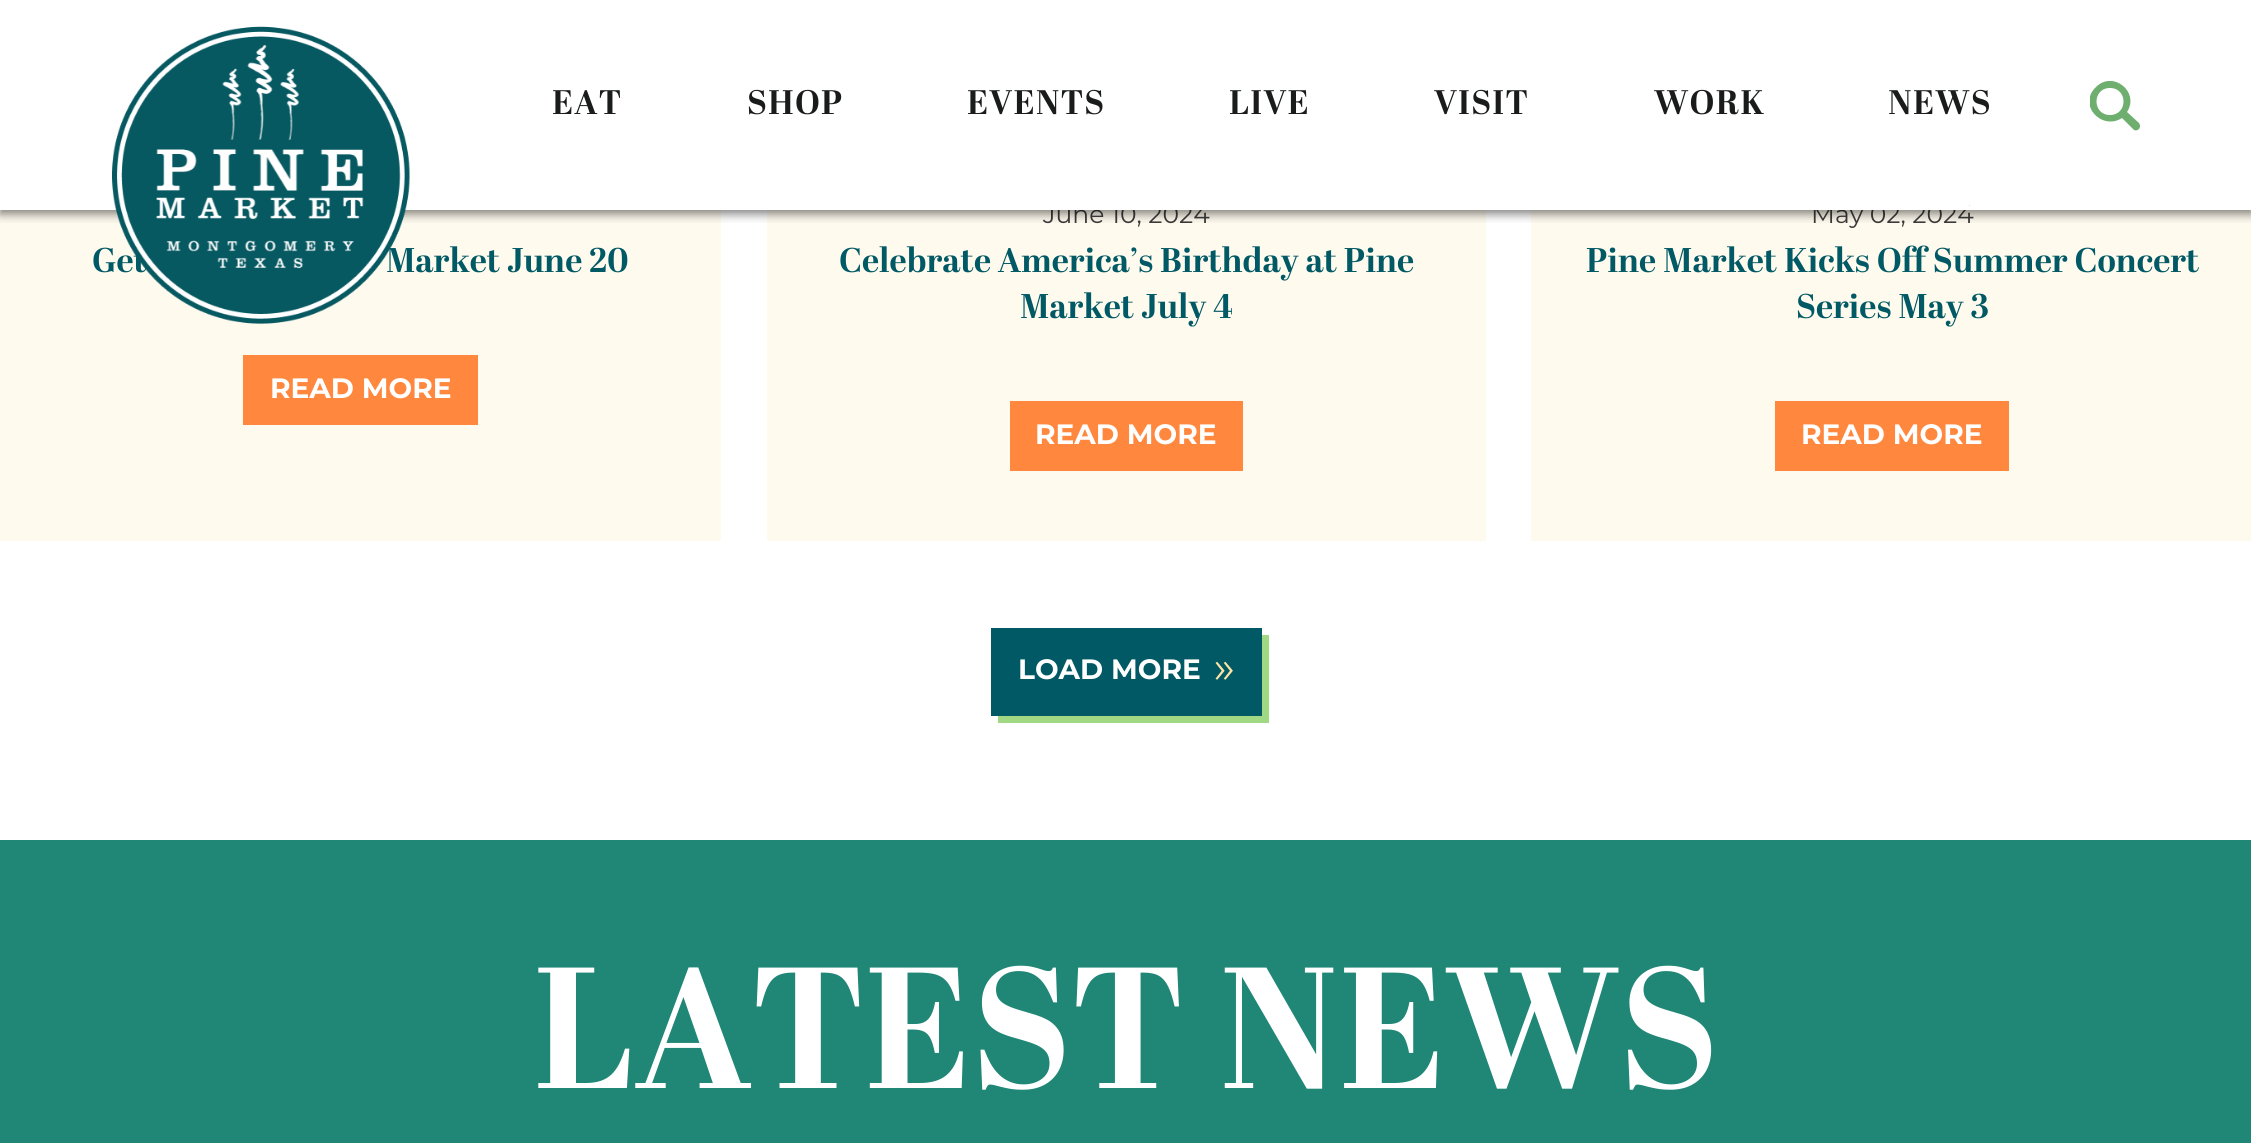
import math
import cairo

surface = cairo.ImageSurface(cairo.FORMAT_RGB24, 2251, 1143)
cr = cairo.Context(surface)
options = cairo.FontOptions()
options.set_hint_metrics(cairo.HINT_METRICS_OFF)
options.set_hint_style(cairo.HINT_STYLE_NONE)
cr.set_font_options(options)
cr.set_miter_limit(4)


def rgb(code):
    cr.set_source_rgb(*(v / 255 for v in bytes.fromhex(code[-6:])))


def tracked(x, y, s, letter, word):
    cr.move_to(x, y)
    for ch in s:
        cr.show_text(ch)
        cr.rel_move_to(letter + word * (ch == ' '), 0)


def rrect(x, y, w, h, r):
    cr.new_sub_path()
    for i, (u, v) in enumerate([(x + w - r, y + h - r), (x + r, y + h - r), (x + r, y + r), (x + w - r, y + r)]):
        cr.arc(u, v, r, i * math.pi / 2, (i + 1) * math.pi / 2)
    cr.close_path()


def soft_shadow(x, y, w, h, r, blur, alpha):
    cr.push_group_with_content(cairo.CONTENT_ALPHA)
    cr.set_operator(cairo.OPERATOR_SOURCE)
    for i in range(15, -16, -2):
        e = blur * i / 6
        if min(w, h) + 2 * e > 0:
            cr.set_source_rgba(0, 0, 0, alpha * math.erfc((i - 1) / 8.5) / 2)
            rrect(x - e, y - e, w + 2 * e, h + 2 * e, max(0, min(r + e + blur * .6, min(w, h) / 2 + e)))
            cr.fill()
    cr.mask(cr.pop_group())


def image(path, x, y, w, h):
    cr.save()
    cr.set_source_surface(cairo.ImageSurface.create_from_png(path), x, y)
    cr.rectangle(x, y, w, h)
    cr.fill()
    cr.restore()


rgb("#ffffff")
cr.paint()
for x, y, w, h, color in [
    (0, 210, 721, 331, "#fffaee"),
    (243, 355, 235, 70, "#ff883e"),
    (767, 210, 719, 331, "#fffaee"),
    (1010, 401, 233, 70, "#ff883e"),
    (1531, 210, 720, 331, "#fffaee"),
    (1775, 401, 234, 70, "#ff883e"),
    (998, 635, 271, 88, "#a1d884"),
    (991, 628, 271, 88, "#005964"),
    (0, 840, 2251, 303, "#208776"),
]:
    rgb(color)
    cr.rectangle(x, y, w, h)
    cr.fill()
cr.select_font_face("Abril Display", cairo.FONT_SLANT_NORMAL, cairo.FONT_WEIGHT_BOLD)
cr.set_font_size(34.25)
rgb("#005964")
cr.move_to(92, 272)
cr.show_text("Get")
cr.move_to(386, 272)
cr.show_text("Market June 20")
cr.select_font_face("Montserrat", cairo.FONT_SLANT_NORMAL, cairo.FONT_WEIGHT_BOLD)
cr.set_font_size(28)
rgb("#ffffff")
cr.move_to(270, 398)
cr.show_text("READ MORE")
cr.select_font_face("Montserrat")
cr.set_font_size(25)
rgb("#3c3b3a")
cr.move_to(1043, 223)
cr.show_text("June 10, 2024")
cr.select_font_face("Abril Display", cairo.FONT_SLANT_NORMAL, cairo.FONT_WEIGHT_BOLD)
cr.set_font_size(34.25)
rgb("#005964")
cr.move_to(839, 272)
cr.show_text("Celebrate America’s Birthday at Pine")
cr.move_to(1020, 318)
cr.show_text("Market July 4")
cr.select_font_face("Montserrat", cairo.FONT_SLANT_NORMAL, cairo.FONT_WEIGHT_BOLD)
cr.set_font_size(28)
rgb("#ffffff")
cr.move_to(1035, 444)
cr.show_text("READ MORE")
cr.select_font_face("Montserrat")
cr.set_font_size(25)
rgb("#3c3b3a")
cr.move_to(1811, 223)
cr.show_text("May 02, 2024")
rgb("#ffffff")
cr.rectangle(1044, 205, 925, 5)
cr.fill()
cr.save()
cr.rectangle(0, 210, 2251, 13)
cr.clip()
rgb("#000000")
soft_shadow(0, 4, 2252, 210, 0, 5, 0.5)
cr.restore()
cr.select_font_face("Abril Display", cairo.FONT_SLANT_NORMAL, cairo.FONT_WEIGHT_BOLD)
cr.set_font_size(34)
rgb("#1a1b1b")
for x, y, s in [
    (1888, 114, "NEWS"),
    (1654, 114, "WORK"),
    (1434, 114, "VISIT"),
    (1229, 114, "LIVE"),
    (967, 114, "EVENTS"),
    (747, 114, "SHOP"),
    (552, 114, "EAT"),
]:
    tracked(x, y, s, 1.25, 0)
cr.save()
cr.rectangle(2090, 81, 50, 50)
cr.clip()
rgb("#6eae6e")
cr.new_path()
cr.move_to(2139, 123)
cr.line_to(2127, 112)
cr.curve_to(2140, 92, 2113, 70, 2096, 87)
cr.curve_to(2077, 105, 2102, 131, 2122, 118)
cr.line_to(2134, 130)
cr.curve_to(2138, 132, 2142, 127, 2139, 123)
cr.close_path()
cr.move_to(2110, 115)
cr.curve_to(2092, 115, 2092, 88, 2110, 88)
cr.curve_to(2128, 88, 2128, 115, 2110, 115)
cr.close_path()
cr.fill()
cr.restore()
image("img/1.png", 112, 26, 298, 298)
cr.set_font_size(34.25)
rgb("#005964")
cr.move_to(1586, 272)
cr.show_text("Pine Market Kicks Off Summer Concert")
cr.move_to(1796, 318)
cr.show_text("Series May 3")
cr.select_font_face("Montserrat", cairo.FONT_SLANT_NORMAL, cairo.FONT_WEIGHT_BOLD)
cr.set_font_size(28)
rgb("#ffffff")
cr.move_to(1801, 444)
cr.show_text("READ MORE")
cr.move_to(1018, 679)
cr.show_text("LOAD MORE")
cr.select_font_face("Noto Sans Light")
cr.set_font_size(45)
rgb("#fee5a5")
cr.move_to(1214, 683)
cr.show_text("»")
cr.select_font_face("Abril Display", cairo.FONT_SLANT_NORMAL, cairo.FONT_WEIGHT_BOLD)
cr.set_font_size(172)
rgb("#ffffff")
cr.move_to(533, 1088)
cr.show_text("LATEST NEWS")
surface.write_to_png("page.png")
